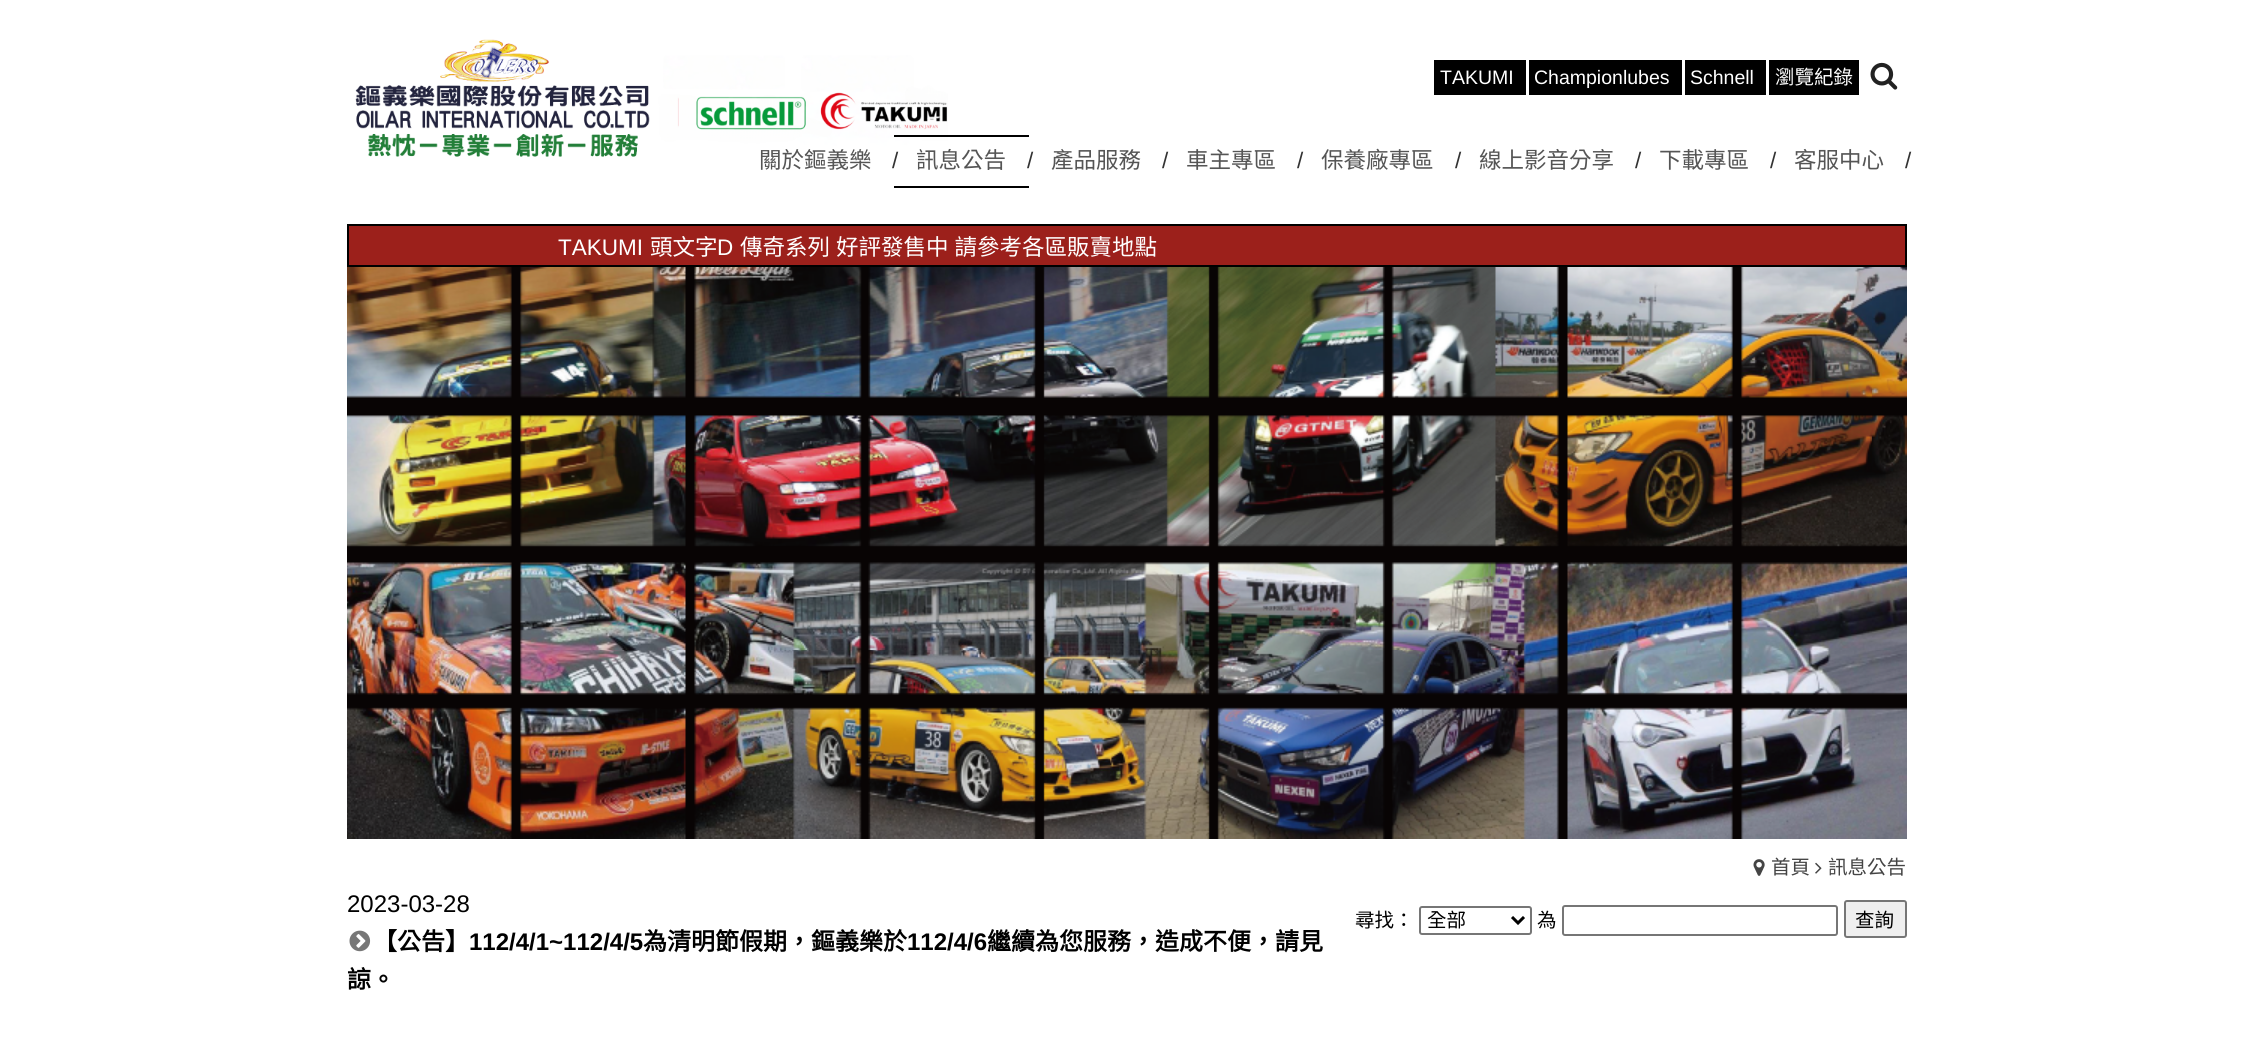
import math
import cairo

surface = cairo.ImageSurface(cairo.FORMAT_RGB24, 2253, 1052)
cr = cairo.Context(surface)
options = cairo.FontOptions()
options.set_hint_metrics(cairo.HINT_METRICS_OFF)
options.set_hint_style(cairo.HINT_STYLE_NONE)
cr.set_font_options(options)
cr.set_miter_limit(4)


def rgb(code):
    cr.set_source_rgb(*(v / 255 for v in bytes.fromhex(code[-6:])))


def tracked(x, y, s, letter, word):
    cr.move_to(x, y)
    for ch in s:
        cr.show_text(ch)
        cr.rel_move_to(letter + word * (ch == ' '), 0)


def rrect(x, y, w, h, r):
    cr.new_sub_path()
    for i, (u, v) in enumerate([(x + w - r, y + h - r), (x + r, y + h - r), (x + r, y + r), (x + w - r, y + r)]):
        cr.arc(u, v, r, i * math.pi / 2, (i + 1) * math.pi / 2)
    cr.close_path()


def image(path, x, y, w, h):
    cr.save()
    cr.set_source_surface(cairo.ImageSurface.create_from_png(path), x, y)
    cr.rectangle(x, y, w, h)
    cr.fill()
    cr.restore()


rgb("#ffffff")
cr.paint()
image("img/1.png", 355, 39, 593, 118)
for x, y, w, h, color in [
    (1434, 60, 92, 35, "#000000"),
    (1529, 60, 153, 35, "#000000"),
    (1685, 60, 81, 35, "#000000"),
    (1769, 60, 90, 35, "#000000"),
]:
    rgb(color)
    cr.rectangle(x, y, w, h)
    cr.fill()
image("img/2.png", 1870, 62, 28, 28)
cr.rectangle(894, 135, 135, 2)
cr.fill()
cr.rectangle(894, 186, 135, 2)
cr.fill()
rgb("#9c201b")
cr.rectangle(348, 225, 1558, 41)
cr.fill_preserve()
rgb("#000000")
cr.stroke()
image("img/3.png", 347, 267, 1560, 572)
image("img/4.png", 1753, 859, 12, 17)
image("img/5.png", 1815, 862, 7, 12)
rrect(1420, 907, 111, 27, 2)
rgb("#767676")
cr.stroke()
cr.new_path()
cr.move_to(1512, 917)
cr.line_to(1518, 923)
cr.line_to(1524, 917)
rgb("#000000")
cr.set_line_width(3)
cr.stroke()
rrect(1563, 906, 274, 29, 2)
rgb("#767676")
cr.set_line_width(2)
cr.stroke()
rgb("#efefef")
rrect(1845, 901, 61, 36, 2)
cr.fill_preserve()
rgb("#767676")
cr.stroke()
image("img/6.png", 349, 930, 22, 22)
cr.select_font_face("Liberation Sans")
cr.set_font_size(19.5)
rgb("#ffffff")
for x, y, s in [
    (1440, 84, "TAKUMI"),
    (1534, 84, "Championlubes"),
    (1690, 84, "Schnell"),
]:
    cr.move_to(x, y)
    cr.show_text(s)
cr.select_font_face("Noto Sans CJK TC")
cr.move_to(1775, 84)
cr.show_text("瀏覽紀錄")
cr.set_font_size(22.5)
rgb("#555555")
cr.move_to(759, 168)
cr.show_text("關於鏂義樂")
cr.select_font_face("Liberation Sans")
rgb("#333333")
cr.move_to(892, 168)
cr.show_text("/")
cr.select_font_face("Noto Sans CJK TC")
rgb("#555555")
cr.move_to(916, 168)
cr.show_text("訊息公告")
cr.select_font_face("Liberation Sans")
rgb("#333333")
cr.move_to(1027, 168)
cr.show_text("/")
cr.select_font_face("Noto Sans CJK TC")
rgb("#555555")
cr.move_to(1051, 168)
cr.show_text("產品服務")
cr.select_font_face("Liberation Sans")
rgb("#333333")
cr.move_to(1162, 168)
cr.show_text("/")
cr.select_font_face("Noto Sans CJK TC")
rgb("#555555")
cr.move_to(1186, 168)
cr.show_text("車主專區")
cr.select_font_face("Liberation Sans")
rgb("#333333")
cr.move_to(1297, 168)
cr.show_text("/")
cr.select_font_face("Noto Sans CJK TC")
rgb("#555555")
cr.move_to(1321, 168)
cr.show_text("保養廠專區")
cr.select_font_face("Liberation Sans")
rgb("#333333")
cr.move_to(1455, 168)
cr.show_text("/")
cr.select_font_face("Noto Sans CJK TC")
rgb("#555555")
cr.move_to(1479, 168)
cr.show_text("線上影音分享")
cr.select_font_face("Liberation Sans")
rgb("#333333")
cr.move_to(1635, 168)
cr.show_text("/")
cr.select_font_face("Noto Sans CJK TC")
rgb("#555555")
cr.move_to(1659, 168)
cr.show_text("下載專區")
cr.select_font_face("Liberation Sans")
rgb("#333333")
cr.move_to(1770, 168)
cr.show_text("/")
cr.select_font_face("Noto Sans CJK TC")
rgb("#555555")
cr.move_to(1794, 168)
cr.show_text("客服中心")
cr.select_font_face("Liberation Sans")
rgb("#333333")
cr.move_to(1905, 168)
cr.show_text("/")
rgb("#ffffff")
cr.move_to(558, 255)
cr.show_text("TAKUMI")
cr.select_font_face("Noto Sans CJK TC")
cr.move_to(650, 255)
cr.show_text("頭文字")
cr.select_font_face("Liberation Sans")
cr.move_to(717, 255)
cr.show_text("D")
cr.select_font_face("Noto Sans CJK TC")
tracked(740, 255, "傳奇系列 好評發售中 請參考各區販賣地點", 0, 1)
cr.set_font_size(19.5)
rgb("#444444")
cr.move_to(1771, 874)
cr.show_text("首頁")
cr.move_to(1828, 874)
cr.show_text("訊息公告")
cr.select_font_face("Liberation Sans")
cr.set_font_size(24)
rgb("#000000")
cr.move_to(347, 912)
cr.show_text("2023-03-28")
cr.select_font_face("Noto Sans CJK TC")
cr.set_font_size(19.5)
for x, y, s in [
    (1355, 927, "尋找："),
    (1427, 927, "全部"),
    (1537, 927, "為"),
    (1855, 927, "查詢"),
]:
    cr.move_to(x, y)
    cr.show_text(s)
cr.select_font_face("Noto Sans CJK TC", cairo.FONT_SLANT_NORMAL, cairo.FONT_WEIGHT_BOLD)
cr.set_font_size(24)
cr.move_to(373, 950)
cr.show_text("【公告】")
cr.select_font_face("Liberation Sans", cairo.FONT_SLANT_NORMAL, cairo.FONT_WEIGHT_BOLD)
cr.move_to(469, 950)
cr.show_text("112/4/1~112/4/5")
cr.select_font_face("Noto Sans CJK TC", cairo.FONT_SLANT_NORMAL, cairo.FONT_WEIGHT_BOLD)
cr.move_to(643, 950)
cr.show_text("為清明節假期，鏂義樂於")
cr.select_font_face("Liberation Sans", cairo.FONT_SLANT_NORMAL, cairo.FONT_WEIGHT_BOLD)
cr.move_to(907, 950)
cr.show_text("112/4/6")
cr.select_font_face("Noto Sans CJK TC", cairo.FONT_SLANT_NORMAL, cairo.FONT_WEIGHT_BOLD)
cr.move_to(987, 950)
cr.show_text("繼續為您服務，造成不便，請見")
cr.move_to(347, 988)
cr.show_text("諒。")
surface.write_to_png("page.png")
